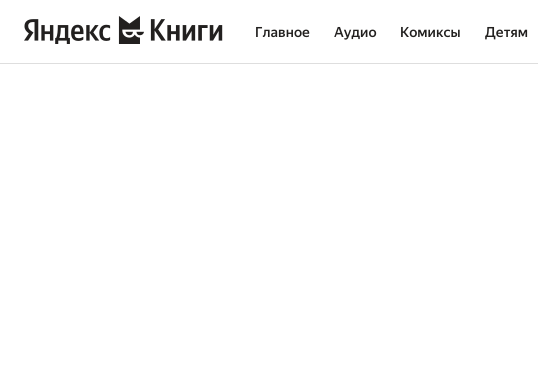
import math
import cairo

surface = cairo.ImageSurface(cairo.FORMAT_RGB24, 538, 385)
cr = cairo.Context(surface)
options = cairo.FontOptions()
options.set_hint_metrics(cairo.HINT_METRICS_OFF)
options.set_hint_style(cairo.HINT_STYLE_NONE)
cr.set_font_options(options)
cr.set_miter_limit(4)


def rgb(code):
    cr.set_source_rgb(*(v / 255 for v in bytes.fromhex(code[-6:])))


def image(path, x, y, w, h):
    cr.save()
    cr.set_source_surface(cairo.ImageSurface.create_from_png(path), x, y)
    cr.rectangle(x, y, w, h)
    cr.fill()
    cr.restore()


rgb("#ffffff")
cr.paint()
rgb("#dedede")
cr.rectangle(0, 63, 538, 1)
cr.fill()
image("img/1.png", 24, 16, 199, 28)
cr.select_font_face("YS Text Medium")
cr.set_font_size(14)
rgb("#22201f")
for x, y, s in [
    (255, 37, "Главное"),
    (334, 37, "Аудио"),
    (400, 37, "Комиксы"),
    (485, 37, "Детям"),
]:
    cr.move_to(x, y)
    cr.show_text(s)
surface.write_to_png("page.png")
